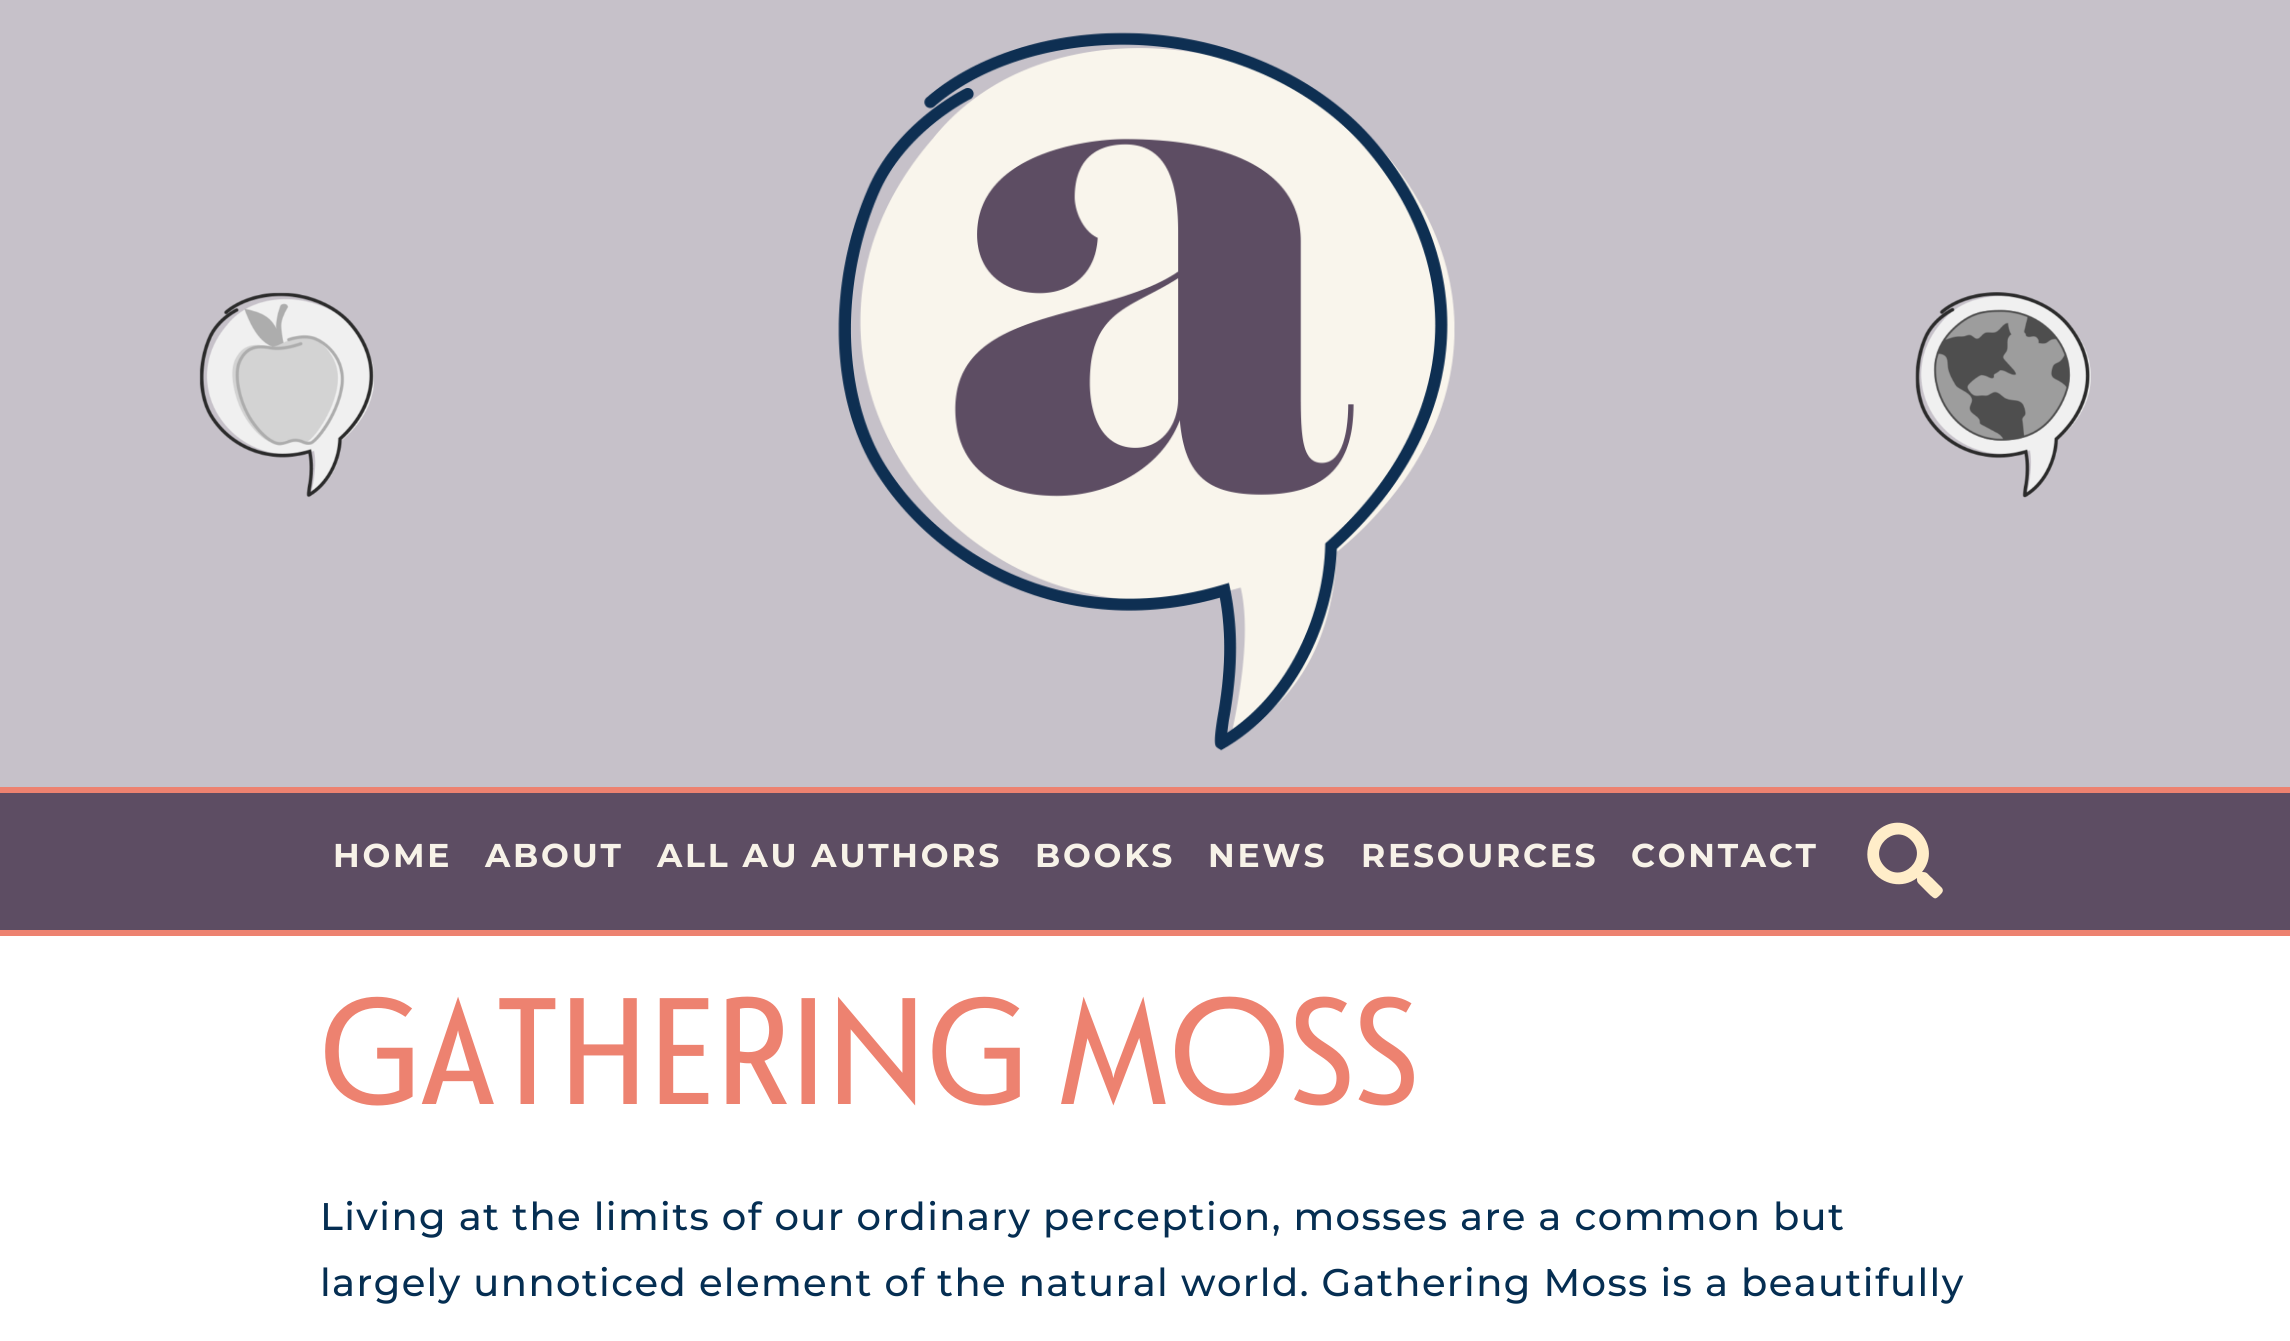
import math
import cairo

surface = cairo.ImageSurface(cairo.FORMAT_RGB24, 2290, 1341)
cr = cairo.Context(surface)
options = cairo.FontOptions()
options.set_hint_metrics(cairo.HINT_METRICS_OFF)
options.set_hint_style(cairo.HINT_STYLE_NONE)
cr.set_font_options(options)
cr.set_miter_limit(4)


def rgb(code):
    cr.set_source_rgb(*(v / 255 for v in bytes.fromhex(code[-6:])))


def tracked(x, y, s, letter, word):
    cr.move_to(x, y)
    for ch in s:
        cr.show_text(ch)
        cr.rel_move_to(letter + word * (ch == ' '), 0)


def image(path, x, y, w, h):
    cr.save()
    cr.set_source_surface(cairo.ImageSurface.create_from_png(path), x, y)
    cr.rectangle(x, y, w, h)
    cr.fill()
    cr.restore()


rgb("#ffffff")
cr.paint()
rgb("#c6c1c9")
cr.rectangle(0, 0, 2290, 787)
cr.fill()
image("img/1.png", 199, 292, 175, 206)
image("img/2.png", 838, 32, 617, 719)
image("img/3.png", 1915, 292, 176, 206)
for x, y, w, h, color in [
    (0, 793, 2290, 137, "#5d4d63"),
    (0, 787, 2290, 6, "#ed8270"),
    (0, 930, 2290, 6, "#ed8270"),
]:
    rgb(color)
    cr.rectangle(x, y, w, h)
    cr.fill()
rgb("#ffedc9")
cr.new_path()
cr.move_to(1942, 888)
cr.curve_to(1944, 891, 1942, 893, 1940, 895)
cr.curve_to(1935, 900, 1935, 899, 1930, 895)
cr.line_to(1920, 885)
cr.curve_to(1917, 882, 1917, 882, 1917, 878)
cr.curve_to(1903, 889, 1882, 885, 1872, 870)
cr.curve_to(1867, 863, 1866, 853, 1869, 844)
cr.curve_to(1871, 838, 1875, 832, 1881, 828)
cr.curve_to(1909, 809, 1944, 845, 1922, 872)
cr.curve_to(1928, 872, 1927, 874, 1932, 878)
cr.close_path()
cr.move_to(1885, 867)
cr.curve_to(1902, 884, 1929, 858, 1911, 840)
cr.curve_to(1894, 823, 1867, 849, 1885, 867)
cr.close_path()
cr.fill()
cr.select_font_face("Montserrat", cairo.FONT_SLANT_NORMAL, cairo.FONT_WEIGHT_BOLD)
cr.set_font_size(33)
rgb("#f7f2e8")
for x, y, s in [
    (333, 867, "HOME"),
    (485, 867, "ABOUT"),
    (657, 867, "ALL AU AUTHORS"),
    (1035, 867, "BOOKS"),
    (1208, 867, "NEWS"),
    (1361, 867, "RESOURCES"),
    (1631, 867, "CONTACT"),
]:
    tracked(x, y, s, 2.75, 0)
cr.select_font_face("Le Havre")
cr.set_font_size(151.25)
rgb("#ed8270")
tracked(320, 1104, "GATHERING MOSS", 1.38, 0)
cr.select_font_face("Montserrat Medium")
cr.set_font_size(38.5)
rgb("#052e52")
tracked(320, 1230, "Living at the limits of our ordinary perception, mosses are a common but", 1.38, 0)
tracked(320, 1296, "largely unnoticed element of the natural world. Gathering Moss is a beautifully", 1.38, 0)
surface.write_to_png("page.png")
